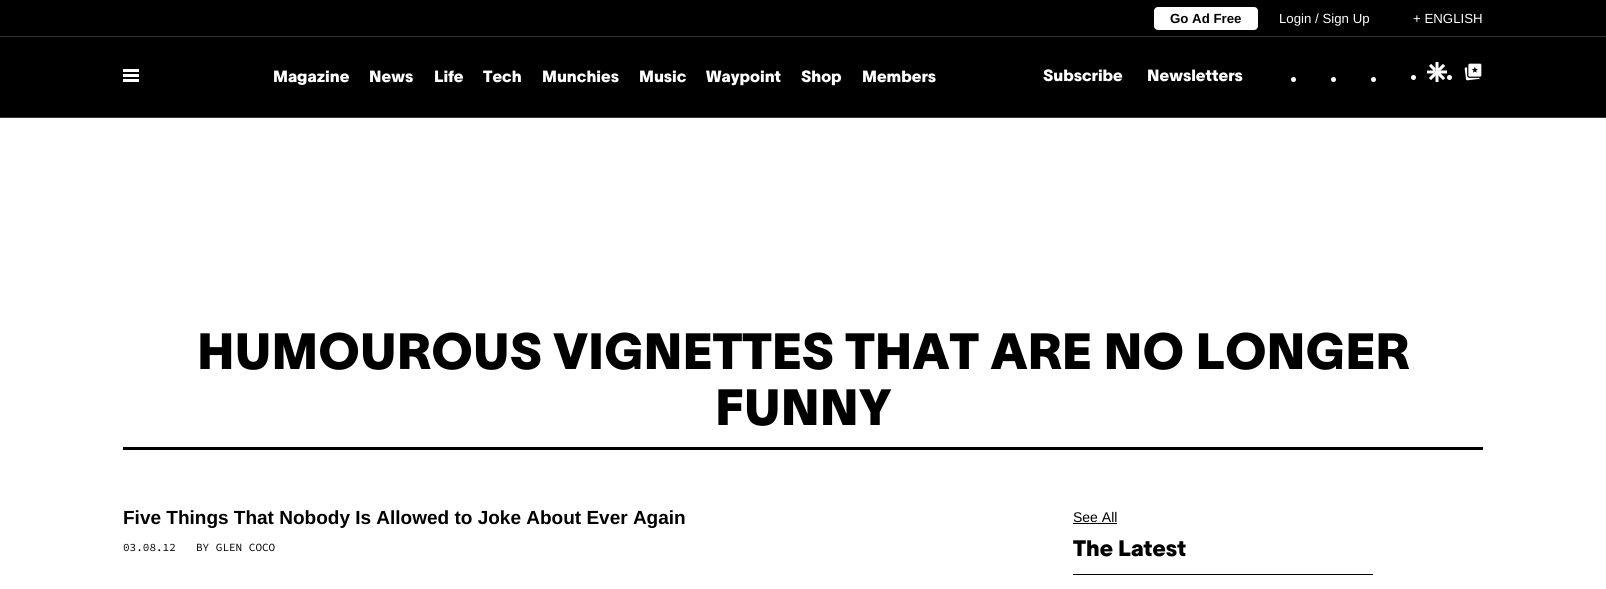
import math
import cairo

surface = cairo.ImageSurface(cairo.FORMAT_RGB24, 1606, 589)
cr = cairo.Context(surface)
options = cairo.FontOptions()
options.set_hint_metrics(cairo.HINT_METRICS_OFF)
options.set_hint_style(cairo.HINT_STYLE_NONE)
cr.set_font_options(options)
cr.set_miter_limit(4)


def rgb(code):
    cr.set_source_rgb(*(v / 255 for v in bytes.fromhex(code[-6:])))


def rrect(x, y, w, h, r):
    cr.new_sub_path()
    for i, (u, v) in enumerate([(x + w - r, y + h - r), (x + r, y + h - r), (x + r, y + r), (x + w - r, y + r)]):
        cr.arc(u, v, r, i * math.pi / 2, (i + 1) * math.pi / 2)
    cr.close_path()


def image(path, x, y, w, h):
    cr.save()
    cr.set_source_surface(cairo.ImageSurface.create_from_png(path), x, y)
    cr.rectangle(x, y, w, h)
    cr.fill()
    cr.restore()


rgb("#ffffff")
cr.paint()
for x, y, w, h, color in [
    (0, 0, 1606, 117, "#000000"),
    (0, 117, 1606, 1, "#333333"),
    (0, 36, 1606, 1, "#333333"),
]:
    rgb(color)
    cr.rectangle(x, y, w, h)
    cr.fill()
rgb("#ffffff")
rrect(1154, 7, 104, 23, 4)
cr.fill()
image("img/1.png", 123, 69, 16, 13)
cr.arc(1293.5, 79.5, 2.5, 0, 2 * math.pi)
cr.fill()
cr.arc(1333.5, 79.5, 2.5, 0, 2 * math.pi)
cr.fill()
cr.arc(1373.5, 79.5, 2.5, 0, 2 * math.pi)
cr.fill()
cr.arc(1413.5, 77.5, 2.5, 0, 2 * math.pi)
cr.fill()
image("img/2.png", 1427, 62, 20, 20)
cr.arc(1449.5, 77.5, 2.5, 0, 2 * math.pi)
cr.fill()
image("img/3.png", 1464, 63, 18, 18)
for x, y, w, h, color in [
    (123, 447, 1360, 3, "#000000"),
    (1073, 574, 300, 1, "#000000"),
    (1073, 523, 44, 1, "#000000"),
]:
    rgb(color)
    cr.rectangle(x, y, w, h)
    cr.fill()
cr.select_font_face("Liberation Sans", cairo.FONT_SLANT_NORMAL, cairo.FONT_WEIGHT_BOLD)
cr.set_font_size(13.25)
cr.move_to(1170, 23)
cr.show_text("Go Ad Free")
cr.select_font_face("Liberation Sans")
rgb("#ffffff")
cr.move_to(1279, 23)
cr.show_text("Login / Sign Up")
cr.move_to(1413, 23)
cr.show_text("+ ENGLISH")
cr.select_font_face("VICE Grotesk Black")
cr.set_font_size(16)
for x, y, s in [
    (273, 82, "Magazine"),
    (369, 82, "News"),
    (434, 82, "Life"),
    (483, 82, "Tech"),
    (542, 82, "Munchies"),
    (639, 82, "Music"),
    (706, 82, "Waypoint"),
    (801, 82, "Shop"),
    (862, 82, "Members"),
    (1043, 81, "Subscribe"),
    (1147, 81, "Newsletters"),
]:
    cr.move_to(x, y)
    cr.show_text(s)
cr.set_font_size(50)
rgb("#000000")
cr.move_to(197, 369)
cr.show_text("HUMOUROUS VIGNETTES THAT ARE NO LONGER")
cr.move_to(715, 425)
cr.show_text("FUNNY")
cr.select_font_face("Liberation Sans", cairo.FONT_SLANT_NORMAL, cairo.FONT_WEIGHT_BOLD)
cr.set_font_size(19)
cr.move_to(123, 524)
cr.show_text("Five Things That Nobody Is Allowed to Joke About Ever Again")
cr.select_font_face("Source Code Pro")
cr.set_font_size(11)
cr.move_to(123, 551)
cr.show_text("03.08.12")
cr.move_to(196, 551)
cr.show_text("BY GLEN COCO")
cr.select_font_face("Liberation Sans")
cr.set_font_size(14)
cr.move_to(1073, 522)
cr.show_text("See All")
cr.select_font_face("VICE Grotesk Black")
cr.set_font_size(22)
cr.move_to(1073, 556)
cr.show_text("The Latest")
surface.write_to_png("page.png")
